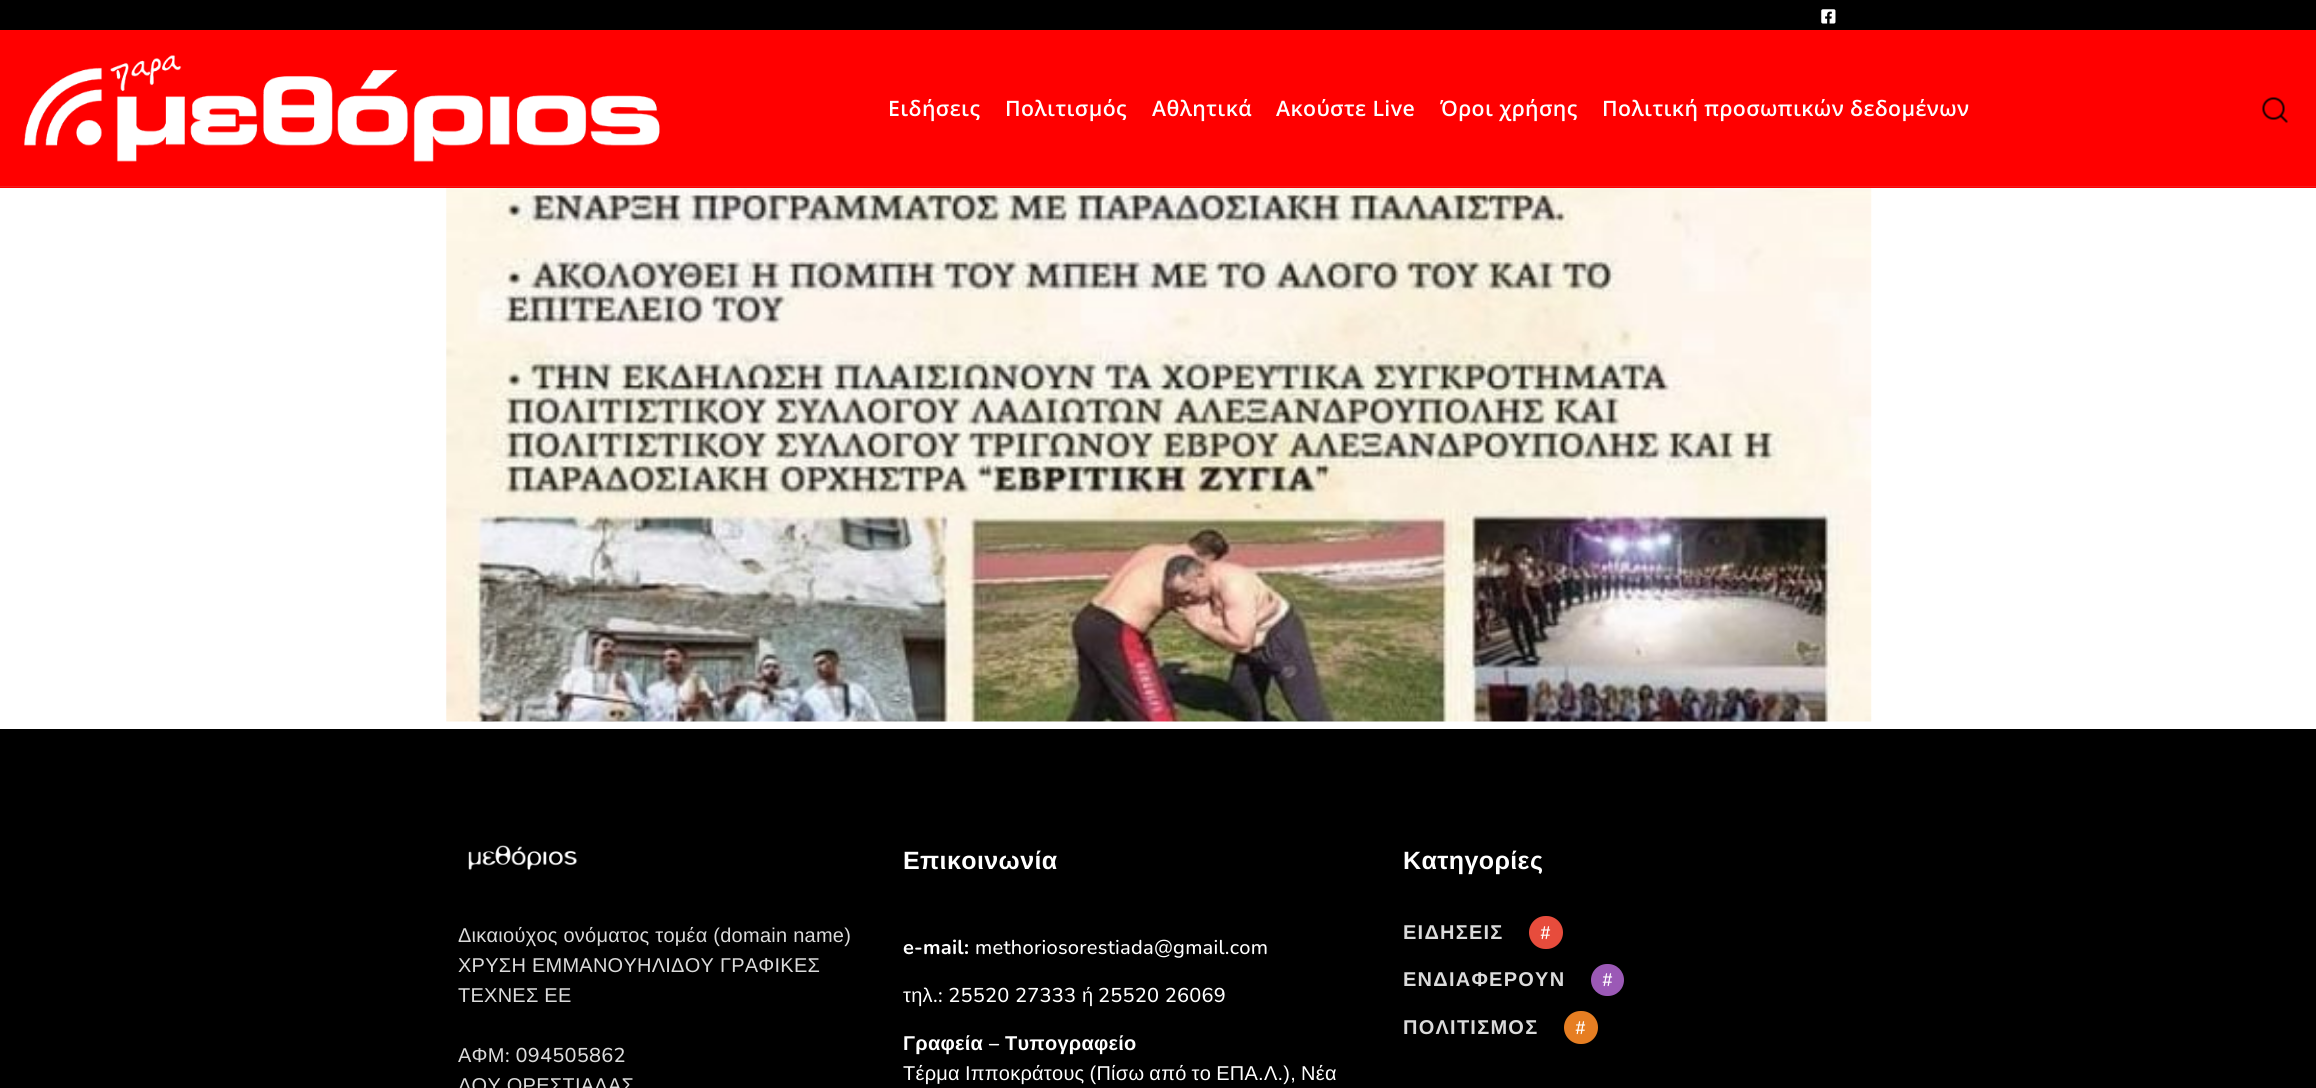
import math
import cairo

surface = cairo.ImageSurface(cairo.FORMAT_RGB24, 2316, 1088)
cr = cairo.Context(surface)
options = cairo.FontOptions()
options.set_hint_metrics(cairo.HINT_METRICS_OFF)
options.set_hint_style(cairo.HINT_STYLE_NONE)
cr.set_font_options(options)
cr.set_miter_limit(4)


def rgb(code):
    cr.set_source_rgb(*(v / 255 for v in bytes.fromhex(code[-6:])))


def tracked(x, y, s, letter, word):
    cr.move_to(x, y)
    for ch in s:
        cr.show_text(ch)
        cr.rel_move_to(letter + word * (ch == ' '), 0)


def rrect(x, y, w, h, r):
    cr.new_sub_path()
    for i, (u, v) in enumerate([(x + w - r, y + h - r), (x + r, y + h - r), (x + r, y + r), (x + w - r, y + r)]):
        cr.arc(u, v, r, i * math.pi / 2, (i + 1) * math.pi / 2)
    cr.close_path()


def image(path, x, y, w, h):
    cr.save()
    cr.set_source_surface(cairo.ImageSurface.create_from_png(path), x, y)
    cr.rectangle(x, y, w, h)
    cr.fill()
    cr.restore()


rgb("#ffffff")
cr.paint()
rgb("#000000")
cr.rectangle(0, 0, 2316, 30)
cr.fill()
image("img/1.png", 1821, 9, 15, 15)
rgb("#ff0000")
cr.rectangle(0, 30, 2316, 158)
cr.fill()
rgb("#ef1d1e")
cr.rectangle(0, 186, 2316, 1)
cr.fill()
image("img/2.png", 24, 55, 636, 107)
image("img/3.png", 2262, 97, 26, 26)
image("img/4.png", 446, 188, 1426, 534)
rgb("#000000")
cr.rectangle(0, 729, 2316, 359)
cr.fill()
image("img/5.png", 468, 845, 110, 26)
rgb("#e74c3c")
rrect(1529, 916, 34, 33, 16.5)
cr.fill()
rgb("#9b59b6")
rrect(1591, 964, 33, 32, 16)
cr.fill()
rgb("#e67e22")
rrect(1564, 1011, 34, 33, 16.5)
cr.fill()
cr.select_font_face("Open Sans SemiBold")
cr.set_font_size(21.25)
rgb("#ffffff")
for x, y, s in [
    (888, 116, "Ειδήσεις"),
    (1005, 116, "Πολιτισμός"),
    (1152, 116, "Αθλητικά"),
    (1276, 116, "Ακούστε Live"),
    (1440, 116, "Όροι χρήσης"),
    (1602, 116, "Πολιτική προσωπικών δεδομένων"),
]:
    tracked(x, y, s, 0.4, 0)
cr.select_font_face("Liberation Sans")
cr.set_font_size(20)
rgb("#dbdbdb")
for x, y, s in [
    (458, 942, "Δικαιούχος ονόματος τομέα (domain name)"),
    (458, 972, "ΧΡΥΣΗ ΕΜΜΑΝΟΥΗΛΙΔΟΥ ΓΡΑΦΙΚΕΣ"),
    (458, 1002, "ΤΕΧΝΕΣ ΕΕ"),
    (458, 1062, "ΑΦΜ"),
]:
    tracked(x, y, s, 0.25, 0)
cr.select_font_face("Nunito Medium")
tracked(505, 1062, ": 094505862", 0.25, 0)
cr.select_font_face("Liberation Sans")
tracked(458, 1092, "ΔΟΥ ΟΡΕΣΤΙΑΔΑΣ", 0.25, 0)
cr.select_font_face("Liberation Sans", cairo.FONT_SLANT_NORMAL, cairo.FONT_WEIGHT_BOLD)
cr.set_font_size(25)
rgb("#ffffff")
tracked(903, 869, "Επικοινωνία", 0.4, 0)
cr.select_font_face("Nunito", cairo.FONT_SLANT_NORMAL, cairo.FONT_WEIGHT_BOLD)
cr.set_font_size(20)
tracked(903, 954, "e-mail:", 0.25, 0)
cr.select_font_face("Nunito Medium")
tracked(975, 954, "methoriosorestiada@gmail.com", 0.25, 0)
cr.select_font_face("Liberation Sans")
tracked(903, 1002, "τηλ", 0.25, 0)
cr.select_font_face("Nunito Medium")
tracked(933, 1002, ".: 25520 27333", 0.25, 0)
cr.select_font_face("Liberation Sans")
tracked(1082, 1002, "ή", 0.25, 0)
cr.select_font_face("Nunito Medium")
tracked(1098, 1002, "25520 26069", 0.25, 0)
cr.select_font_face("Liberation Sans", cairo.FONT_SLANT_NORMAL, cairo.FONT_WEIGHT_BOLD)
tracked(903, 1050, "Γραφεία", 0.25, 0)
cr.select_font_face("Nunito", cairo.FONT_SLANT_NORMAL, cairo.FONT_WEIGHT_BOLD)
tracked(989, 1050, "–", 0.25, 0)
cr.select_font_face("Liberation Sans", cairo.FONT_SLANT_NORMAL, cairo.FONT_WEIGHT_BOLD)
tracked(1005, 1050, "Τυπογραφείο", 0.25, 0)
cr.select_font_face("Liberation Sans")
tracked(903, 1080, "Τέρμα Ιπποκράτους (Πίσω από το ΕΠΑ.Λ.), Νέα", 0.25, -0.75)
cr.select_font_face("Liberation Sans", cairo.FONT_SLANT_NORMAL, cairo.FONT_WEIGHT_BOLD)
cr.set_font_size(25)
tracked(1403, 869, "Κατηγορίες", 0.4, 0)
cr.set_font_size(20)
rgb("#dbdbdb")
tracked(1403, 939, "ΕΙΔΗΣΕΙΣ", 1.25, 0)
cr.select_font_face("Nunito Medium")
cr.set_font_size(18)
rgb("#ffffff")
tracked(1540, 939, "#", 0.4, 0)
cr.select_font_face("Liberation Sans", cairo.FONT_SLANT_NORMAL, cairo.FONT_WEIGHT_BOLD)
cr.set_font_size(20)
rgb("#dbdbdb")
tracked(1403, 986, "ΕΝΔΙΑΦΕΡΟΥΝ", 1.25, 0)
cr.select_font_face("Nunito Medium")
cr.set_font_size(18)
rgb("#ffffff")
tracked(1602, 986, "#", 0.4, 0)
cr.select_font_face("Liberation Sans", cairo.FONT_SLANT_NORMAL, cairo.FONT_WEIGHT_BOLD)
cr.set_font_size(20)
rgb("#dbdbdb")
tracked(1403, 1034, "ΠΟΛΙΤΙΣΜΟΣ", 1.25, 0)
cr.select_font_face("Nunito Medium")
cr.set_font_size(18)
rgb("#ffffff")
tracked(1575, 1034, "#", 0.4, 0)
surface.write_to_png("page.png")
